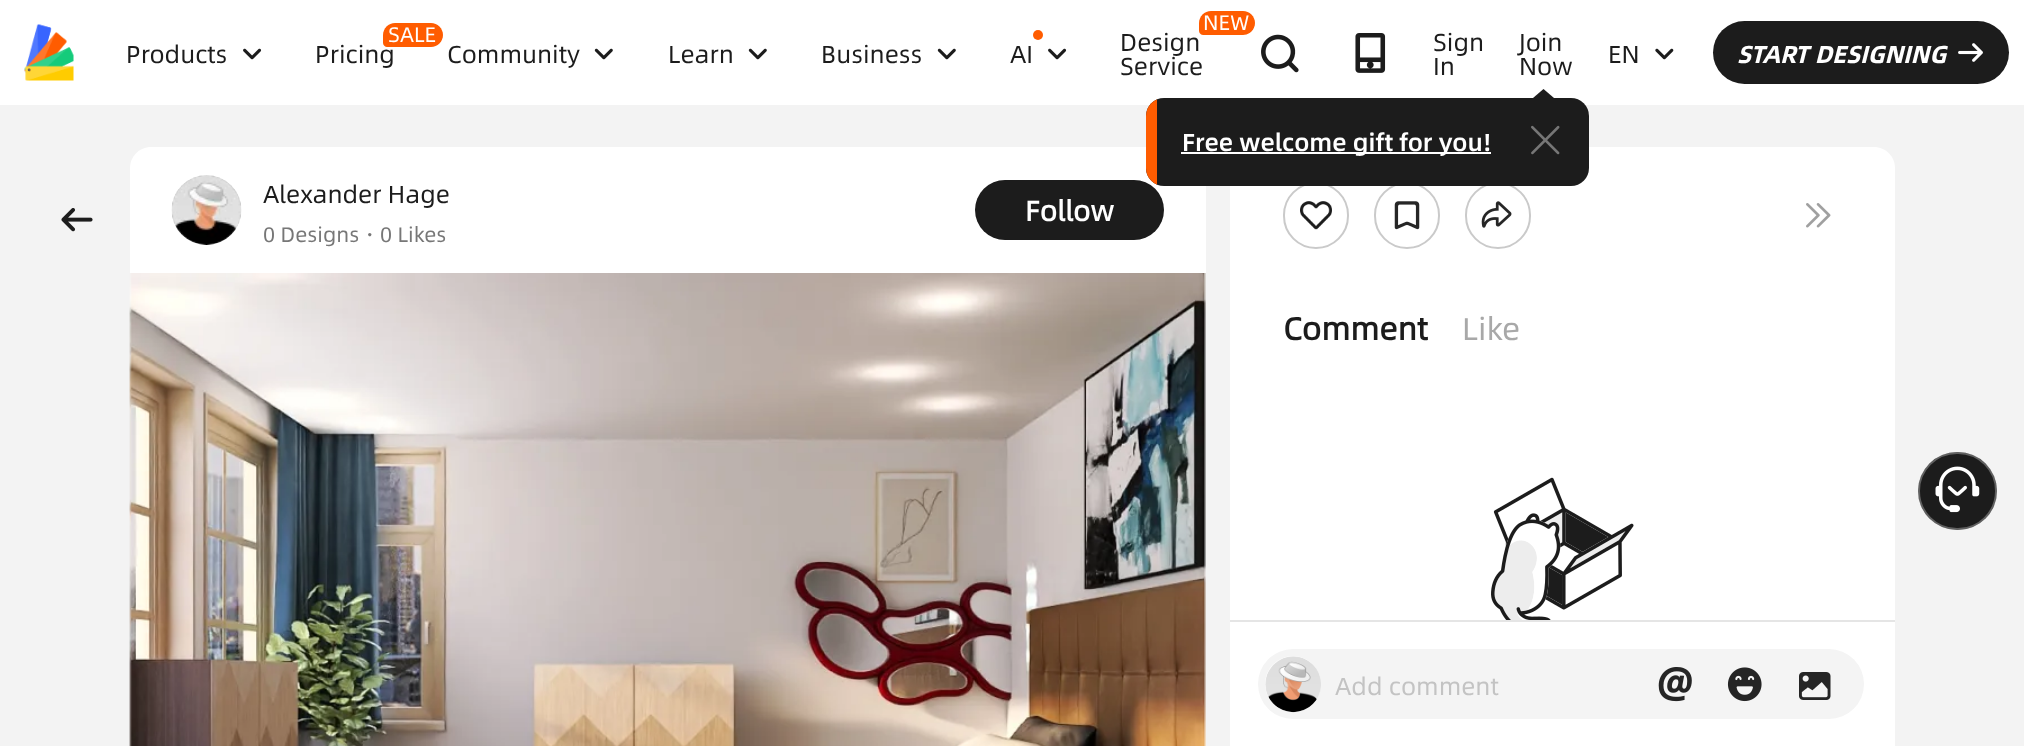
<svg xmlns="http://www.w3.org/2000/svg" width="2024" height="746">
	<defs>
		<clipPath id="clip1"><rect x="1146" y="98" width="443" height="88" rx="18" /></clipPath>
	</defs>
	<rect width="100%" height="100%" fill="#F3F3F3" />
	<rect x="0" y="0" width="2024" height="105" fill="#FFFFFF" />
	<image x="24" y="24" width="50" height="57" href="assets/img1.png" />
	<text x="126" y="63" font-family="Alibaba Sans" font-size="24.5" fill="#1C1C1C">Products</text>
	<image x="243" y="48" width="19" height="12" href="assets/img2.png" />
	<text x="315" y="63" font-family="Alibaba Sans" font-size="24.5" fill="#1C1C1C">Pricing</text>
	<path d="M395 23H431C437.5 23 443 28.5 443 35C443 41.5 437.5 47 431 47H387C385 47 383 45 383 43V35C383 28.5 388.5 23 395 23Z" fill="#FF5C00" />
	<text x="388" y="42" font-family="Alibaba Sans" font-size="21" fill="#FFFFFF">SALE</text>
	<text x="447" y="63" font-family="Alibaba Sans" font-size="24.5" fill="#1C1C1C">Community</text>
	<image x="594" y="48" width="19" height="12" href="assets/img3.png" />
	<text x="668" y="63" font-family="Alibaba Sans" font-size="24.5" fill="#1C1C1C">Learn</text>
	<image x="748" y="48" width="19" height="12" href="assets/img3.png" />
	<text x="821" y="63" font-family="Alibaba Sans" font-size="24.5" fill="#1C1C1C">Business</text>
	<image x="937" y="48" width="19" height="12" href="assets/img3.png" />
	<circle cx="1038" cy="35" r="5" fill="#FF5C00" />
	<text x="1010" y="63" font-family="Alibaba Sans" font-size="24.5" fill="#1C1C1C">AI</text>
	<image x="1048" y="48" width="19" height="12" href="assets/img2.png" />
	<path d="M1211 11H1243C1249.5 11 1255 16.5 1255 23C1255 29.5 1249.5 35 1243 35H1203C1201 35 1199 33 1199 31V23C1199 16.5 1204.5 11 1211 11Z" fill="#FF5C00" />
	<text x="1203" y="30" font-family="Alibaba Sans" font-size="21" fill="#FFFFFF">NEW</text>
	<g font-family="Alibaba Sans" font-size="24.5" fill="#1C1C1C">
		<text x="1120" y="51">Design</text>
		<text x="1120" y="75">Service</text>
		<text x="1519" y="51">Join</text>
		<text x="1519" y="75">Now</text>
	</g>
	<path d="M1554 98H1533L1543.5 89Z" fill="#1C1C1C" />
	<path d="M151 147H1185C1196.5 147 1206 156.5 1206 168V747H130V168C130 156.5 139.5 147 151 147Z" fill="#FFFFFF" />
	<rect x="975" y="180" width="189" height="60" rx="30" fill="#1C1C1C" />
	<path d="M1251 147H1874C1885.5 147 1895 156.5 1895 168V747H1230V168C1230 156.5 1239.5 147 1251 147Z" fill="#FFFFFF" />
	<rect x="1284" y="183" width="64" height="65" rx="32" fill="none" stroke="#CACACA" stroke-width="2" />
	<rect x="1375" y="183" width="64" height="65" rx="32" fill="none" stroke="#CACACA" stroke-width="2" />
	<rect x="1466" y="183" width="64" height="65" rx="32" fill="none" stroke="#CACACA" stroke-width="2" />
	<rect x="1146" y="98" width="443" height="88" rx="18" fill="#1C1C1C" />
	<g clip-path="url(#clip1)">
		<rect x="1146" y="99" width="11" height="86" fill="#FF5C00" />
	</g>
	<rect x="1181" y="152" width="310" height="2" fill="#FFFFFF" />
	<text x="1182" y="151" font-family="Alibaba Sans" font-size="24.5" font-weight="500" fill="#FFFFFF">Free welcome gift for you!</text>
	<image x="1531" y="125" width="29" height="30" href="assets/img4.png" />
	<image x="1261" y="34" width="38" height="39" href="assets/img5.png" />
	<image x="1355" y="33" width="31" height="40" href="assets/img6.png" />
	<g font-family="Alibaba Sans" font-size="24.5" fill="#1C1C1C">
		<text x="1433" y="51">Sign</text>
		<text x="1433" y="75">In</text>
		<text x="1608" y="63">EN</text>
	</g>
	<image x="1655" y="48" width="19" height="12" href="assets/img7.png" />
	<rect x="1713" y="21" width="296" height="63" rx="31.5" fill="#1C1C1C" />
	<text x="1737" y="63" font-family="Alibaba Sans" font-size="24.5" font-weight="700" font-style="italic" fill="#FFFFFF">START DESIGNING</text>
	<image x="1958" y="43" width="25" height="19" href="assets/img8.png" />
	<image x="61" y="208" width="32" height="24" href="assets/img9.png" />
	<image x="171" y="175" width="71" height="70" href="assets/img10.png" />
	<text x="263" y="203" font-family="Alibaba Sans" font-size="24.5" fill="#1C1C1C">Alexander Hage</text>
	<text x="263" y="242" font-family="Alibaba Sans" font-size="21" fill="#777777">0 Designs</text>
	<text x="359" y="242" font-family="WenQuanYi Zen Hei" font-size="21" font-weight="500" fill="#777777">・</text>
	<text x="380" y="242" font-family="Alibaba Sans" font-size="21" fill="#777777">0 Likes</text>
	<text x="1025" y="221" font-family="Alibaba Sans" font-size="28" font-weight="700" fill="#FFFFFF">Follow</text>
	<image x="129" y="273" width="1077" height="473" href="assets/img11.png" />
	<image x="131" y="273" width="1073" height="473" href="assets/img12.png" />
	<image x="1300" y="201" width="32" height="29" href="assets/img13.png" />
	<image x="1394" y="201" width="26" height="29" href="assets/img14.png" />
	<image x="1481" y="201" width="31" height="27" href="assets/img15.png" />
	<image x="1806" y="203" width="25" height="25" href="assets/img16.png" />
	<text x="1283" y="340" font-family="Alibaba Sans" font-size="31.5" font-weight="700" fill="#1C1C1C">Comment</text>
	<text x="1462" y="340" font-family="Alibaba Sans" font-size="31.5" fill="#A8A8A8">Like</text>
	<image x="1491" y="477" width="143" height="143" href="assets/img17.png" />
	<rect x="1230" y="620" width="665" height="2" fill="#E5E5E5" />
	<rect x="1258" y="649" width="606" height="70" rx="35" fill="#F4F4F4" />
	<circle cx="1293" cy="684" r="28" fill="#FFFFFF" />
	<image x="1265" y="656" width="56" height="57" href="assets/img18.png" />
	<text x="1335" y="695" font-family="Alibaba Sans" font-size="24.5" fill="#C3C3C3">Add comment</text>
	<image x="1658" y="667" width="34" height="35" href="assets/img19.png" />
	<image x="1727" y="667" width="35" height="35" href="assets/img20.png" />
	<image x="1799" y="672" width="32" height="28" href="assets/img21.png" />
	<rect x="1918" y="452" width="79" height="78" rx="39" fill="#1C1C1C" />
	<rect x="1919" y="453" width="77" height="76" rx="38" fill="none" stroke="#FFFFFF" stroke-opacity="0.3" stroke-width="2" />
	<image x="1935" y="466" width="45" height="47" href="assets/img22.png" />
</svg>
